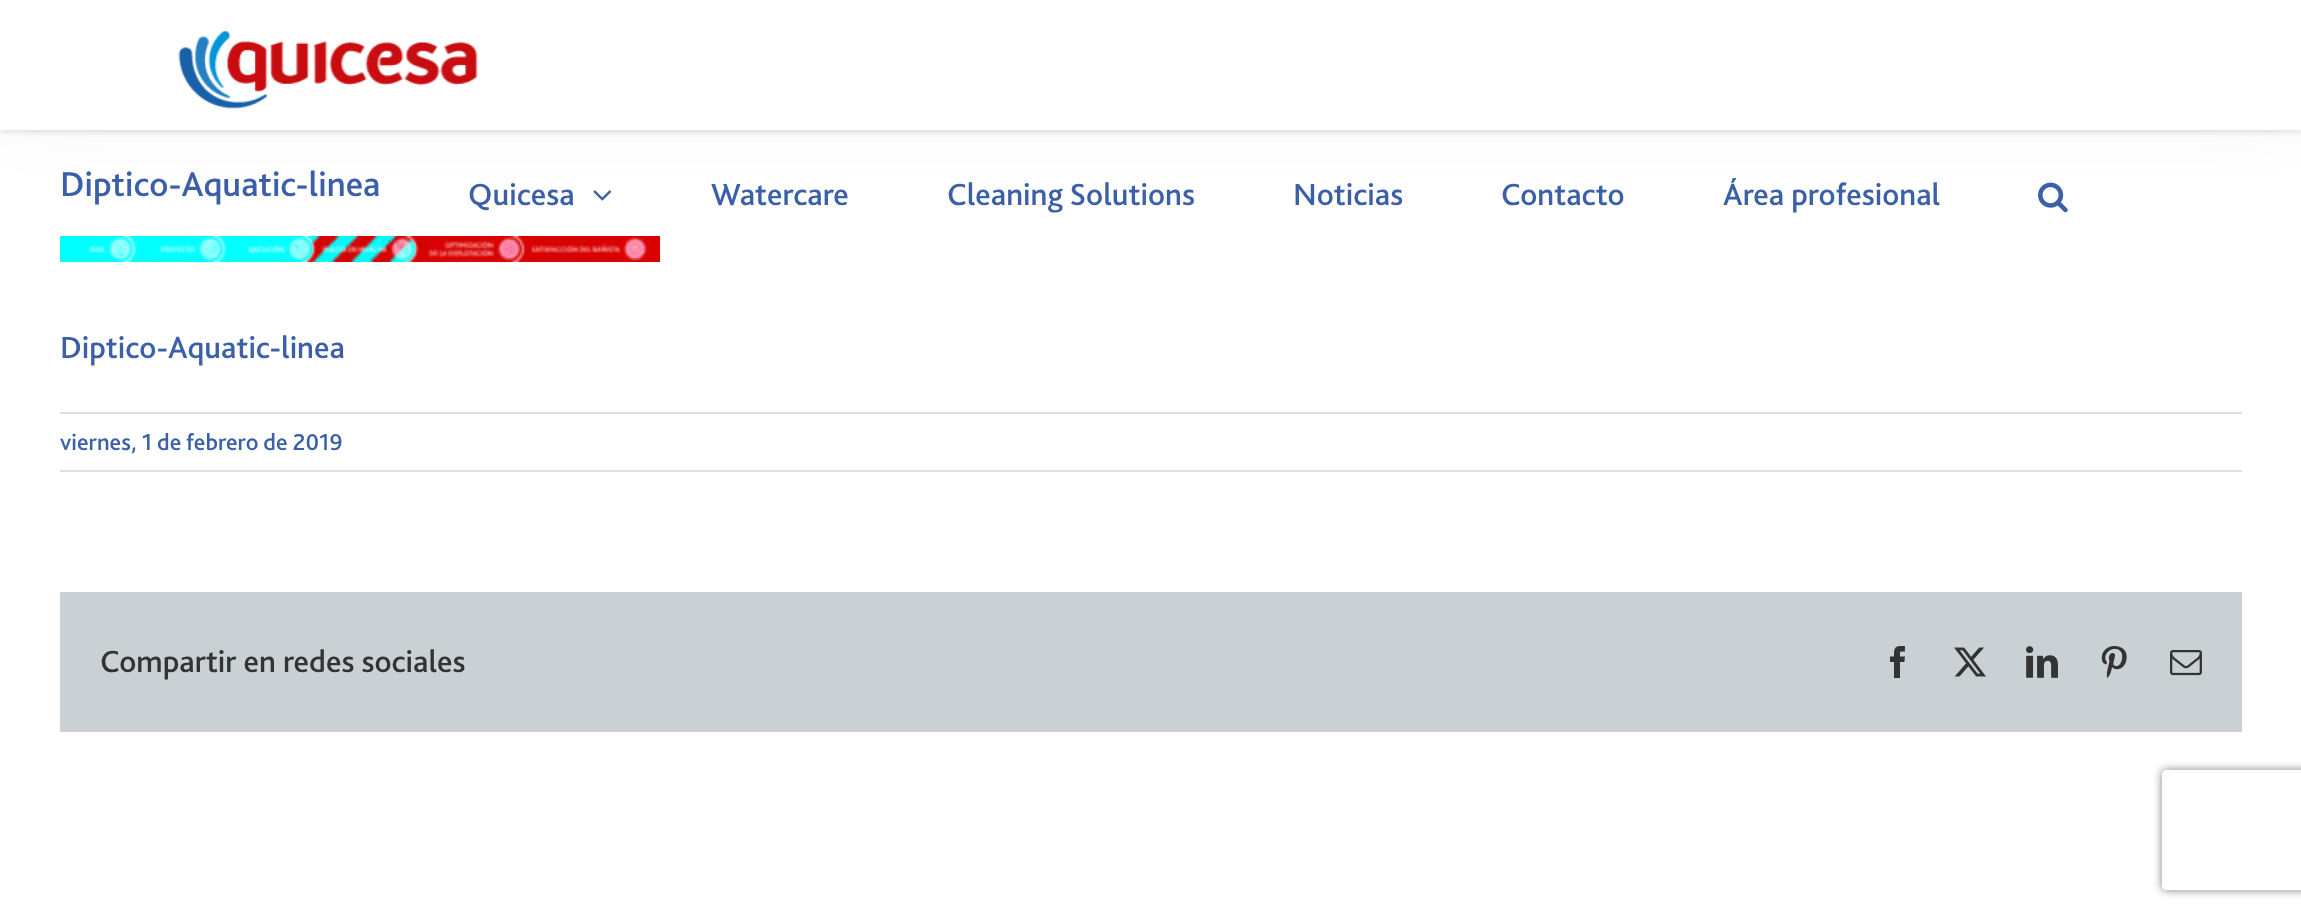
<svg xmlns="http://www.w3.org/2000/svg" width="2301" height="918">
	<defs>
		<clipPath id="clip1"><path d="M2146 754H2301V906H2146ZM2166 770H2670C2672 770 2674 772 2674 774V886C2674 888 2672 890 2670 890H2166C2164 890 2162 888 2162 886V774C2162 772 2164 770 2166 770Z" clip-rule="evenodd" /></clipPath>
	</defs>
	<rect width="100%" height="100%" fill="#FFFFFF" />
	<text x="60" y="196" font-family="'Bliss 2'" font-size="36" font-weight="500" fill="#3B60A7">Diptico-Aquatic-linea</text>
	<image x="60" y="236" width="600" height="26" href="assets/img1.png" />
	<text x="60" y="358" font-family="'Bliss 2'" font-size="32" font-weight="500" fill="#3B60A7">Diptico-Aquatic-linea</text>
	<rect x="60" y="412" width="2182" height="2" fill="#E0DEDE" />
	<rect x="60" y="470" width="2182" height="2" fill="#E0DEDE" />
	<text x="60" y="450" font-family="'Bliss 2'" font-size="24" font-weight="500" fill="#3B60A7">viernes, 1 de febrero de 2019</text>
	<rect x="60" y="592" width="2182" height="140" fill="#CAD1D5" />
	<text x="100" y="672" font-family="'Bliss 2'" font-size="32" font-weight="500" fill="#333333">Compartir en redes sociales</text>
	<image x="1890" y="646" width="15" height="32" href="assets/img2.png" />
	<image x="1954" y="647" width="32" height="30" href="assets/img3.png" />
	<image x="2026" y="646" width="32" height="32" href="assets/img4.png" />
	<image x="2101" y="646" width="26" height="32" href="assets/img5.png" />
	<image x="2170" y="650" width="32" height="26" href="assets/img6.png" />
	<rect x="4" y="-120" width="2294" height="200" fill="#000000" fill-opacity="0.14" filter="blur(50px)" />
	<rect x="0" y="2" width="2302" height="130" fill="#000000" fill-opacity="0.12" filter="blur(3px)" />
	<rect x="0" y="0" width="2301" height="130" fill="#FFFFFF" />
	<image x="178" y="31" width="300" height="78" href="assets/img7.png" />
	<text x="468" y="205" font-family="'Bliss 2'" font-size="32" font-weight="500" fill="#3B60A7">Quicesa</text>
	<image x="593" y="190" width="19" height="11" href="assets/img8.png" />
	<g font-family="'Bliss 2'" font-size="32" font-weight="500" fill="#3B60A7">
		<text x="711" y="205">Watercare</text>
		<text x="947" y="205">Cleaning Solutions</text>
		<text x="1293" y="205">Noticias</text>
		<text x="1501" y="205">Contacto</text>
		<text x="1723" y="205">Área profesional</text>
	</g>
	<image x="2038" y="182" width="30" height="31" href="assets/img9.png" />
	<g clip-path="url(#clip1)">
		<rect x="2162" y="770" width="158" height="120" rx="4" fill="#808080" filter="blur(5px)" />
	</g>
</svg>
